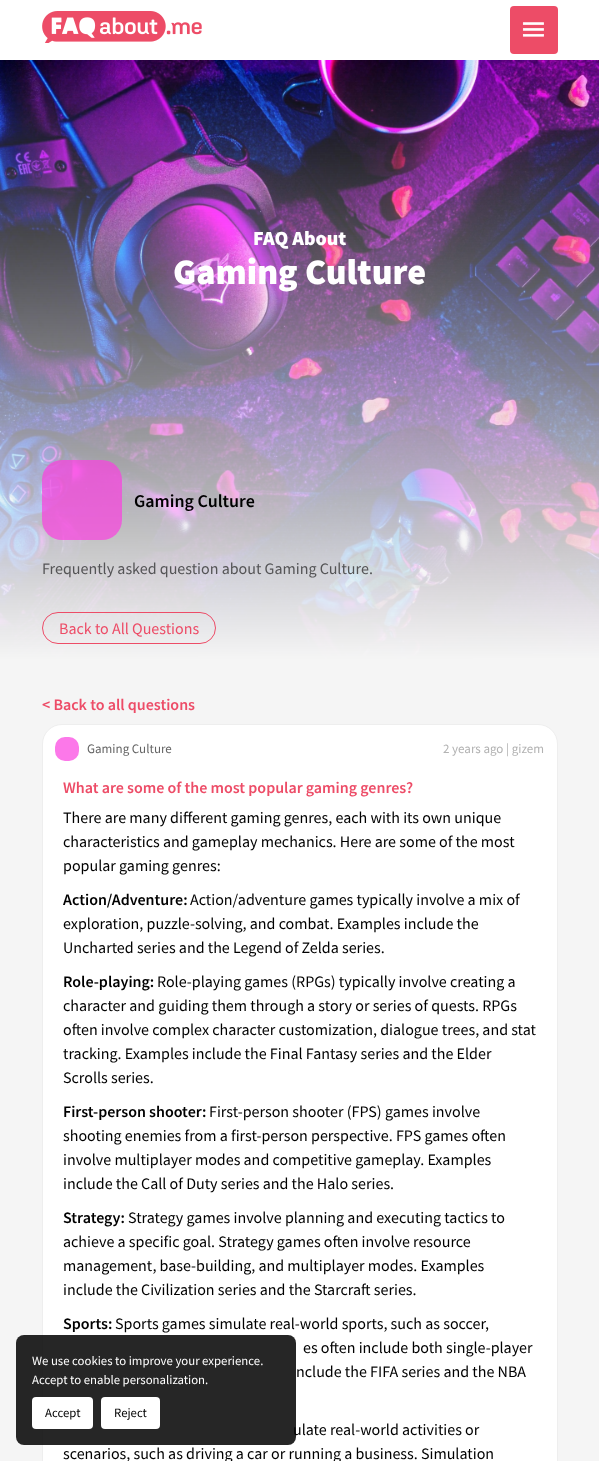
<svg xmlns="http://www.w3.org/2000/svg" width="599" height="1461">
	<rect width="100%" height="100%" fill="#F5F5F5" />
	<rect x="0" y="0" width="599" height="60" fill="#FFFFFF" />
	<image x="42" y="11" width="160" height="32" href="assets/img1.png" />
	<rect x="510" y="6" width="48" height="48" rx="4" fill="#ED4C67" />
	<image x="522" y="22" width="22" height="15" href="assets/img2.png" />
	<image x="0" y="60" width="599" height="600" href="assets/img3.png" />
	<text x="253" y="245" font-family="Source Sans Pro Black" font-size="20" font-weight="900" fill="#FFFFFF">FAQ About</text>
	<text x="173" y="284" font-family="Source Sans Pro Black" font-size="36" font-weight="900" fill="#FFFFFF">Gaming Culture</text>
	<rect x="42" y="460" width="80" height="80" rx="20" fill="#FB3EDF" fill-opacity="0.7" />
	<text x="134" y="507" font-family="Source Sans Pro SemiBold" font-size="18" font-weight="600" fill="#000000">Gaming Culture</text>
	<text x="42" y="574" font-family="Source Sans Pro" font-size="16" fill="#545456">Frequently asked question about Gaming Culture.</text>
	<rect x="42.5" y="612.5" width="173" height="31" rx="15.5" fill="none" stroke="#ED4C67" />
	<text x="59" y="634" font-family="Source Sans Pro" font-size="16" fill="#ED4C67">Back to All Questions</text>
	<text x="42" y="710" font-family="Source Sans Pro SemiBold" font-size="16" font-weight="600" fill="#ED4C67">&lt; Back to all questions</text>
	<rect x="42.5" y="724.5" width="515" height="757" rx="19.5" fill="#FFFFFF" stroke="#EEEEEE" />
	<rect x="55" y="737" width="24" height="24" rx="10" fill="#FC78E9" />
	<text x="87" y="753" font-family="Source Sans Pro" font-size="13" fill="#646464">Gaming Culture</text>
	<text x="443" y="753" font-family="Source Sans Pro" font-size="13" fill="#B2B2B2">2 years ago | gizem</text>
	<text x="63" y="793" font-family="Source Sans Pro SemiBold" font-size="16" font-weight="600" fill="#ED4C67">What are some of the most popular gaming genres?</text>
	<g font-family="Source Sans Pro" font-size="16" fill="#000000">
		<text x="63" y="823">There are many different gaming genres, each with its own unique</text>
		<text x="63" y="847">characteristics and gameplay mechanics. Here are some of the most</text>
		<text x="63" y="871">popular gaming genres:</text>
	</g>
	<text x="63" y="905" font-family="Source Sans Pro SemiBold" font-size="16" font-weight="600" fill="#000000">Action/Adventure:</text>
	<g font-family="Source Sans Pro" font-size="16" fill="#000000">
		<text x="190" y="905">Action/adventure games typically involve a mix of</text>
		<text x="63" y="929">exploration, puzzle-solving, and combat. Examples include the</text>
		<text x="63" y="953">Uncharted series and the Legend of Zelda series.</text>
	</g>
	<text x="63" y="987" font-family="Source Sans Pro SemiBold" font-size="16" font-weight="600" fill="#000000">Role-playing:</text>
	<g font-family="Source Sans Pro" font-size="16" fill="#000000">
		<text x="157" y="987">Role-playing games (RPGs) typically involve creating a</text>
		<text x="63" y="1011">character and guiding them through a story or series of quests. RPGs</text>
		<text x="63" y="1035">often involve complex character customization, dialogue trees, and stat</text>
		<text x="63" y="1059">tracking. Examples include the Final Fantasy series and the Elder</text>
		<text x="63" y="1083">Scrolls series.</text>
	</g>
	<text x="63" y="1117" font-family="Source Sans Pro SemiBold" font-size="16" font-weight="600" fill="#000000">First-person shooter:</text>
	<g font-family="Source Sans Pro" font-size="16" fill="#000000">
		<text x="209" y="1117">First-person shooter (FPS) games involve</text>
		<text x="63" y="1141">shooting enemies from a first-person perspective. FPS games often</text>
		<text x="63" y="1165">involve multiplayer modes and competitive gameplay. Examples</text>
		<text x="63" y="1189">include the Call of Duty series and the Halo series.</text>
	</g>
	<text x="63" y="1223" font-family="Source Sans Pro SemiBold" font-size="16" font-weight="600" fill="#000000">Strategy:</text>
	<g font-family="Source Sans Pro" font-size="16" fill="#000000">
		<text x="128" y="1223">Strategy games involve planning and executing tactics to</text>
		<text x="63" y="1247">achieve a specific goal. Strategy games often involve resource</text>
		<text x="63" y="1271">management, base-building, and multiplayer modes. Examples</text>
		<text x="63" y="1295">include the Civilization series and the Starcraft series.</text>
	</g>
	<text x="63" y="1329" font-family="Source Sans Pro SemiBold" font-size="16" font-weight="600" fill="#000000">Sports:</text>
	<g font-family="Source Sans Pro" font-size="16" fill="#000000">
		<text x="115" y="1329">Sports games simulate real-world sports, such as soccer,</text>
		<text x="303" y="1353">es often include both single-player</text>
		<text x="296" y="1377">nclude the FIFA series and the NBA</text>
		<text x="293" y="1435">ulate real-world activities or</text>
		<text x="63" y="1459">scenarios, such as driving a car or running a business. Simulation</text>
	</g>
	<rect x="16" y="1335" width="280" height="110" rx="8" fill="#000000" fill-opacity="0.85" />
	<g font-family="Source Sans Pro" font-size="12.75" fill="#FFFFFF">
		<text x="32" y="1365">We use cookies to improve your experience.</text>
		<text x="32" y="1384">Accept to enable personalization.</text>
	</g>
	<rect x="32" y="1397" width="61" height="32" rx="4" fill="#FFFFFF" />
	<text x="45" y="1417" font-family="Source Sans Pro" font-size="12.75" fill="#000000">Accept</text>
	<rect x="101" y="1397" width="59" height="32" rx="4" fill="#FFFFFF" />
	<text x="114" y="1417" font-family="Source Sans Pro" font-size="12.75" fill="#000000">Reject</text>
</svg>
